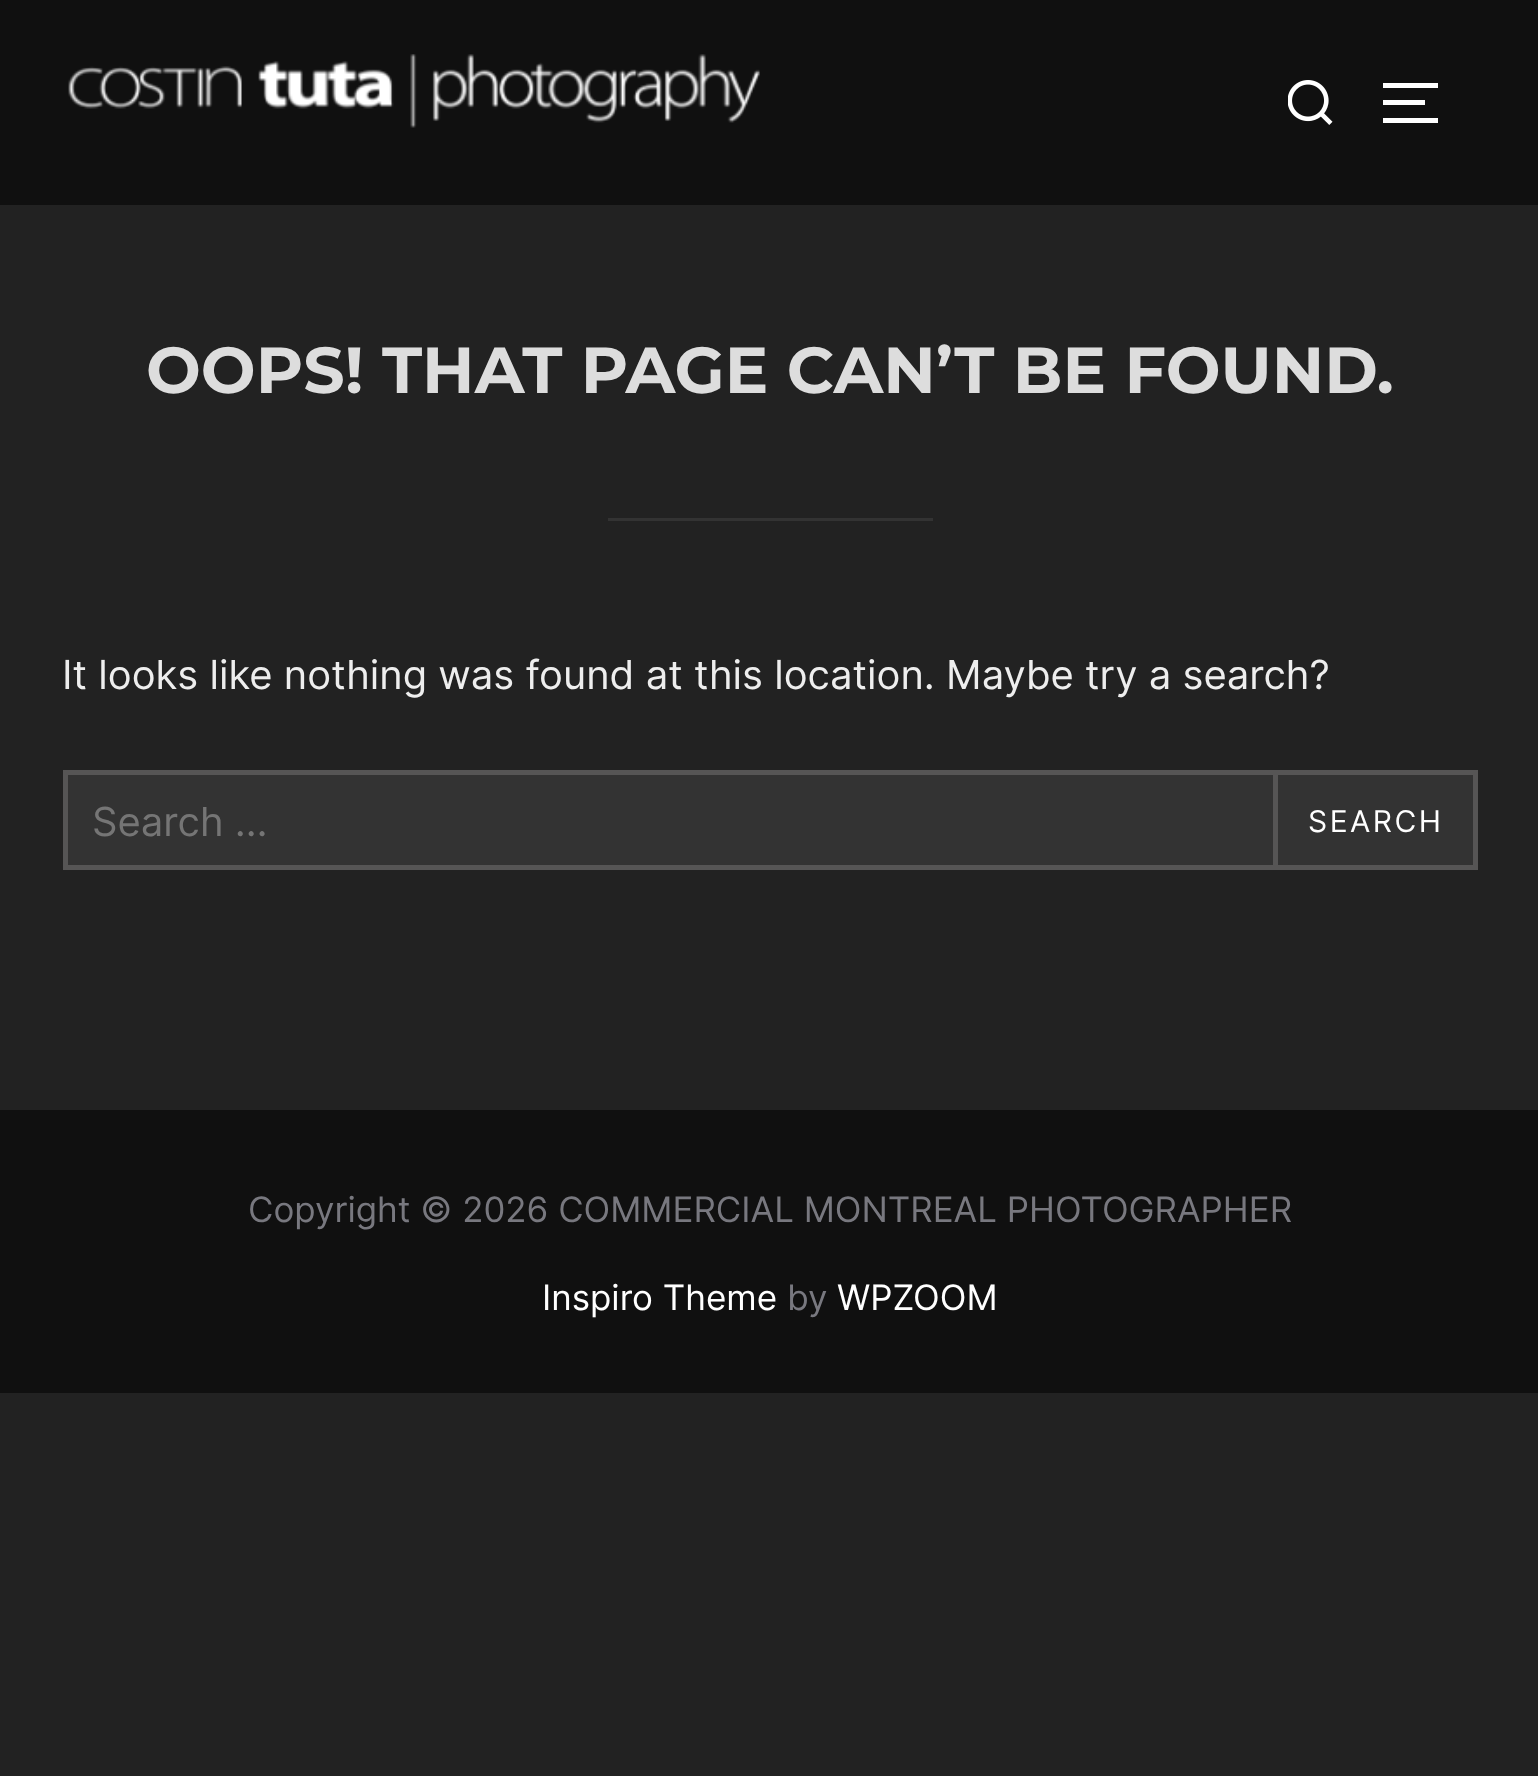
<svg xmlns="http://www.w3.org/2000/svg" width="1538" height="1776">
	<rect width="100%" height="100%" fill="#222222" />
	<rect x="0" y="0" width="1538" height="205" fill="#101010" />
	<image x="68" y="54" width="692" height="74" href="assets/img1.png" />
	<image x="1288" y="80" width="45" height="45" href="assets/img2.png" />
	<rect x="1383" y="83" width="55" height="5" fill="#FFFFFF" />
	<rect x="1383" y="100" width="42" height="5" fill="#FFFFFF" />
	<rect x="1383" y="118" width="55" height="5" fill="#FFFFFF" />
	<text x="146" y="393" font-family="Montserrat" font-size="65" font-weight="100" fill="#DDDDDD">OOPS! THAT PAGE CAN’T BE FOUND.</text>
	<rect x="608" y="518" width="325" height="3" fill="#333333" />
	<text x="62" y="689" font-family="Inter" font-size="40" fill="#EEEEEE">It looks like nothing was found at this location. Maybe try a search?</text>
	<rect x="65.5" y="772.5" width="1410" height="95" fill="#333333" stroke="#565555" stroke-width="5" />
	<text x="92" y="836" font-family="Inter" font-size="40" fill="#757575">Search …</text>
	<rect x="1275.5" y="772.5" width="200" height="95" fill="none" stroke="#565555" stroke-width="5" />
	<text x="1308" y="832" font-family="Inter" font-size="30" letter-spacing="2.5" fill="#FFFFFF">SEARCH</text>
	<rect x="0" y="1110" width="1538" height="283" fill="#101010" />
	<text x="248" y="1222" font-family="Inter" font-size="35" fill="#78787F">Copyright © 2026 COMMERCIAL MONTREAL PHOTOGRAPHER</text>
	<text x="542" y="1310" font-family="Inter" font-size="35" fill="#FFFFFF">Inspiro Theme</text>
	<text x="787" y="1310" font-family="Inter" font-size="35" fill="#78787F">by</text>
	<text x="837" y="1310" font-family="Inter" font-size="35" fill="#FFFFFF">WPZOOM</text>
</svg>
